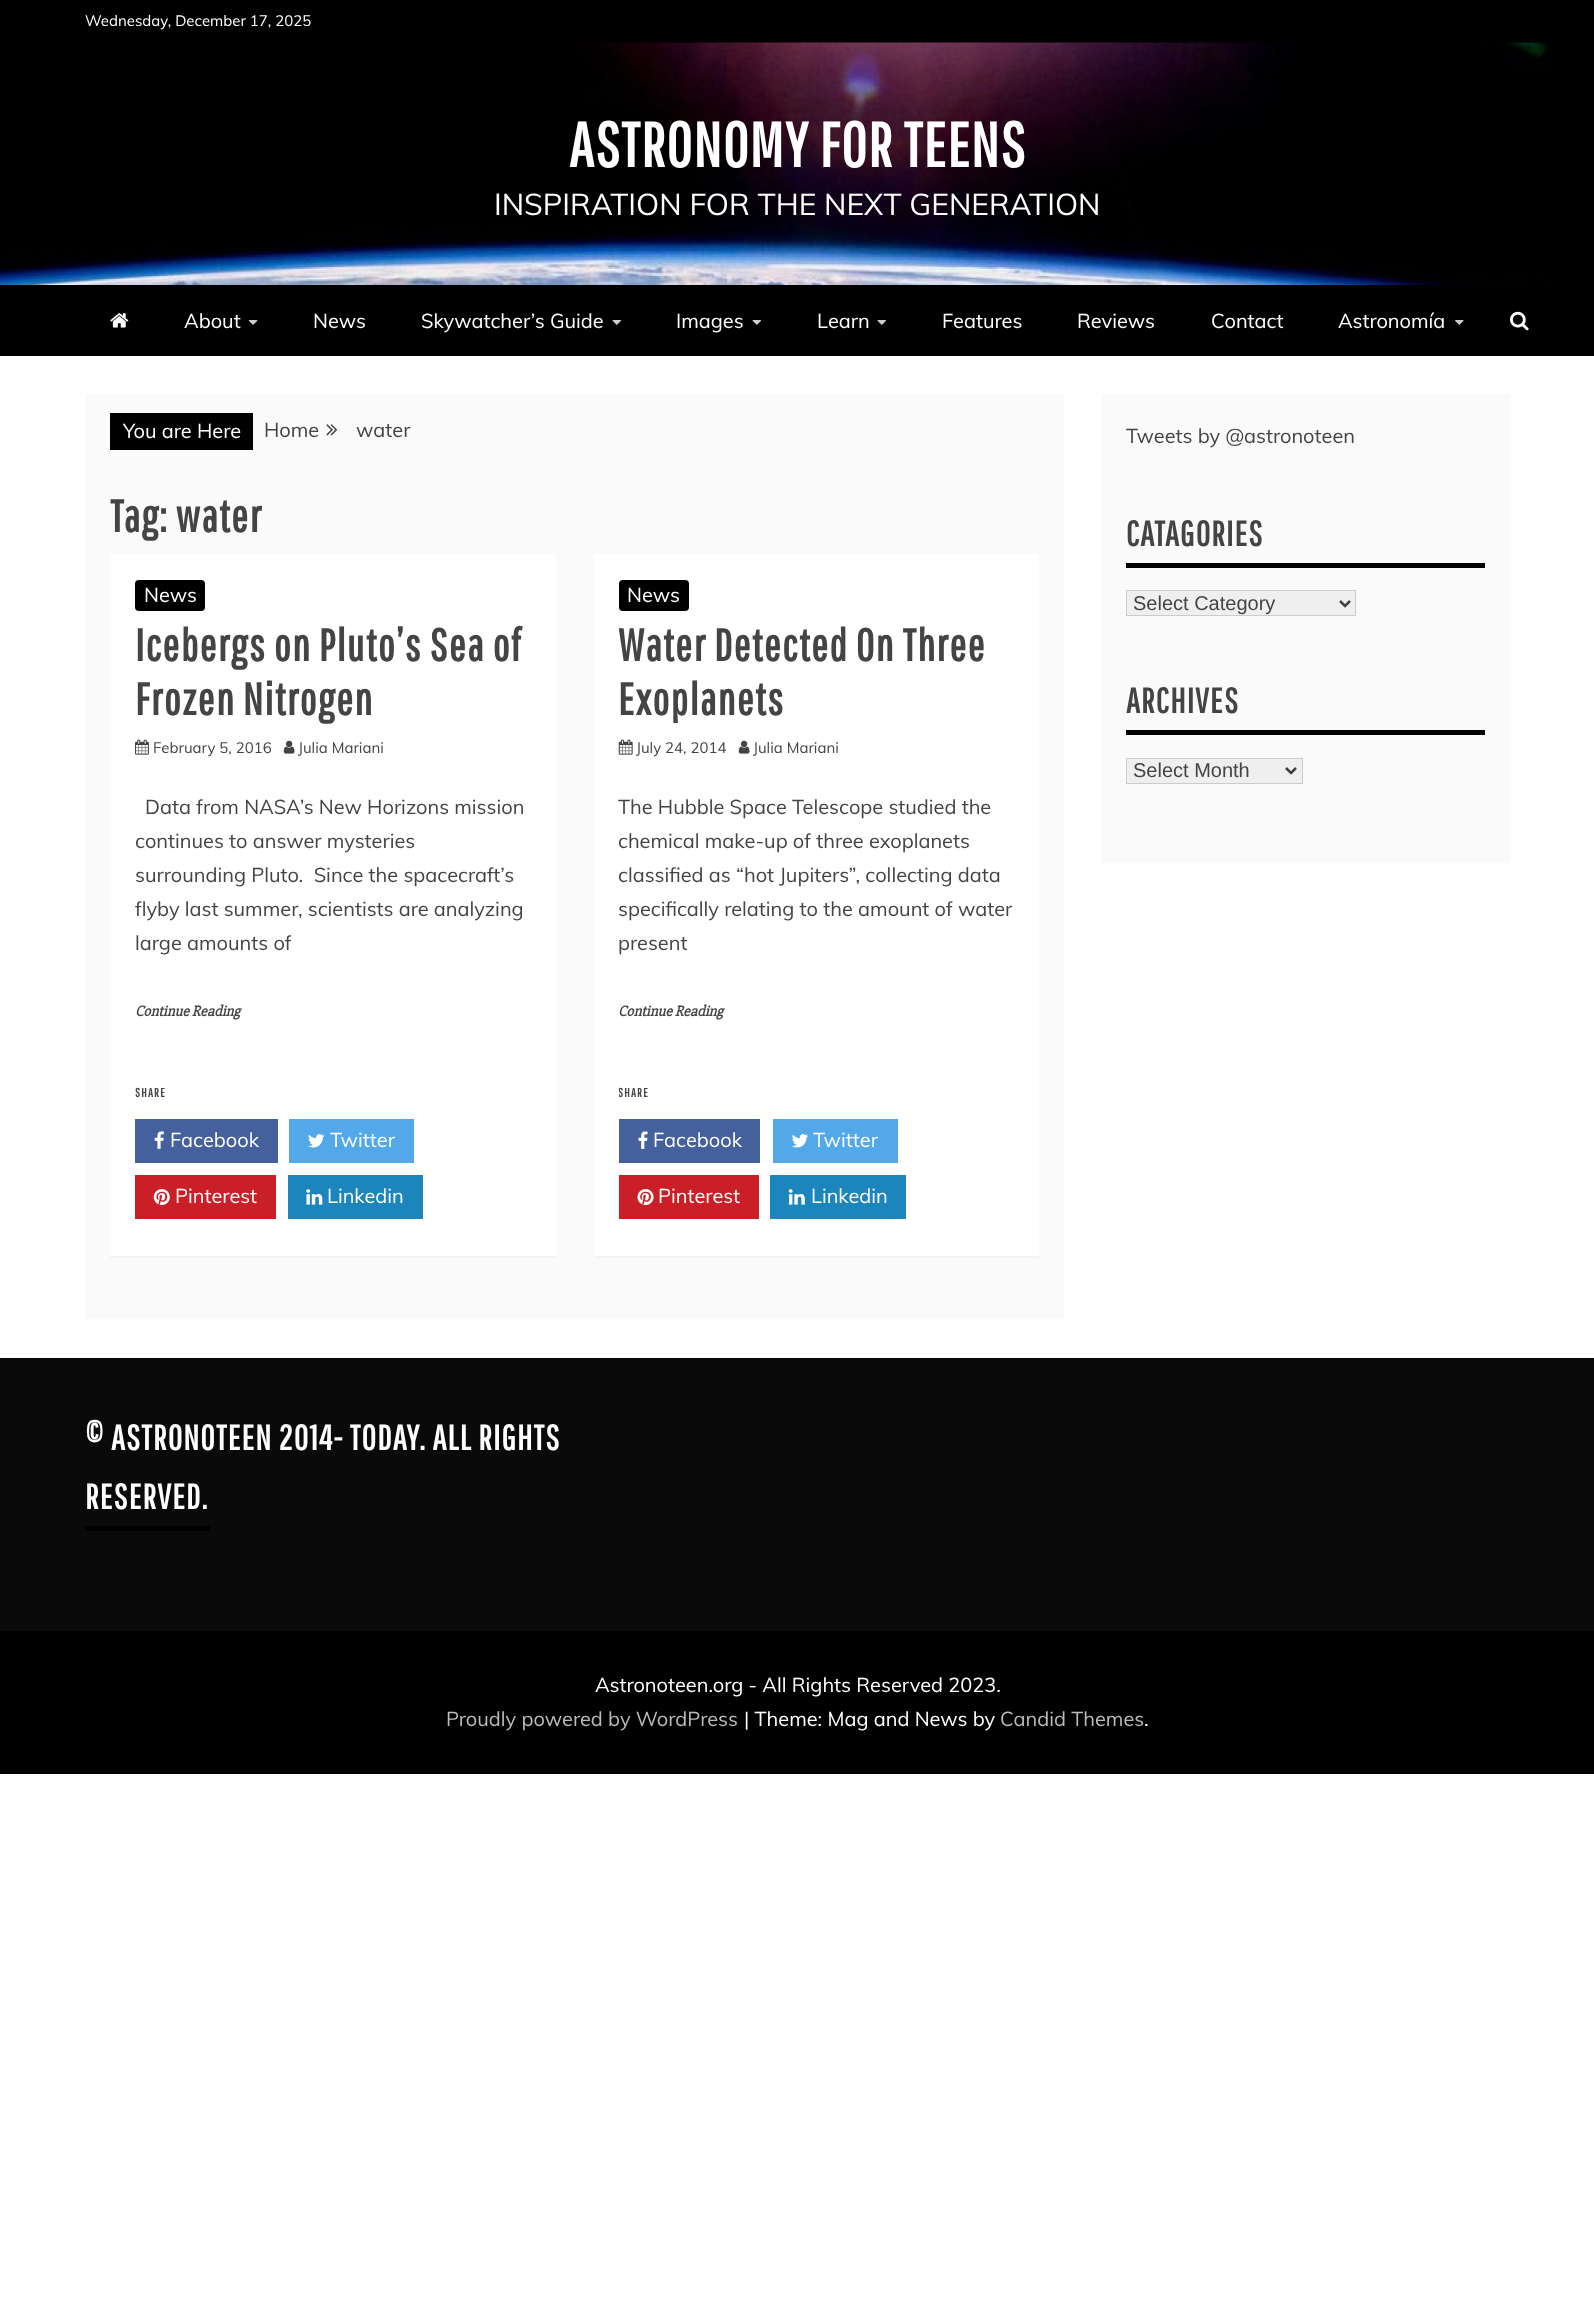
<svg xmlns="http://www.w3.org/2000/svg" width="1594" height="2301">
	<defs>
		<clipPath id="clip1"><rect x="619" y="1083" width="395" height="148" /></clipPath>
	</defs>
	<rect width="100%" height="100%" fill="#FFFFFF" />
	<rect x="0" y="0" width="1594" height="43" fill="#000000" />
	<text x="85" y="26" font-family="Muli" font-size="15" fill="#FFFFFF">Wednesday, December 17, 2025</text>
	<image x="0" y="42" width="1594" height="243" href="assets/img1.png" />
	<text x="569" y="167" font-family="Pathway Gothic One" font-size="62.5" font-weight="700" letter-spacing="1.25" fill="#FFFFFF">ASTRONOMY FOR TEENS</text>
	<text x="494" y="215" font-family="Muli" font-size="30" fill="#FFFFFF">INSPIRATION FOR THE NEXT GENERATION</text>
	<rect x="0" y="285" width="1594" height="71" fill="#000000" />
	<image x="110" y="313" width="19" height="15" href="assets/img2.png" />
	<text x="184" y="328" font-family="Muli" font-size="20" fill="#FFFFFF">About</text>
	<image x="248" y="320" width="10" height="5" href="assets/img3.png" />
	<g font-family="Muli" font-size="20" fill="#FFFFFF">
		<text x="313" y="328">News</text>
		<text x="421" y="328">Skywatcher’s Guide</text>
	</g>
	<image x="612" y="320" width="9" height="5" href="assets/img4.png" />
	<text x="676" y="328" font-family="Muli" font-size="20" fill="#FFFFFF">Images</text>
	<image x="752" y="320" width="9" height="5" href="assets/img4.png" />
	<text x="817" y="328" font-family="Muli" font-size="20" fill="#FFFFFF">Learn</text>
	<image x="877" y="320" width="9" height="5" href="assets/img4.png" />
	<g font-family="Muli" font-size="20" fill="#FFFFFF">
		<text x="942" y="328">Features</text>
		<text x="1077" y="328">Reviews</text>
		<text x="1211" y="328">Contact</text>
		<text x="1338" y="328">Astronomía</text>
	</g>
	<image x="1455" y="320" width="9" height="5" href="assets/img5.png" />
	<image x="1510" y="311" width="19" height="20" href="assets/img6.png" />
	<rect x="85" y="394" width="979" height="925" fill="#FAFAFA" />
	<rect x="110" y="413" width="143" height="37" fill="#000000" />
	<text x="123" y="438" font-family="Muli" font-size="20" fill="#FFFFFF">You are Here</text>
	<text x="264" y="437" font-family="Muli" font-size="20" fill="#444444">Home</text>
	<image x="326" y="424" width="12" height="12" href="assets/img7.png" />
	<text x="356" y="437" font-family="Muli" font-size="20" fill="#444444">water</text>
	<text x="110" y="532" font-family="Pathway Gothic One" font-size="45" font-weight="700" letter-spacing="1.25" fill="#444444">Tag: water</text>
	<rect x="110" y="1256" width="446" height="2" fill="#F3F3F3" />
	<rect x="110" y="554" width="446" height="702" fill="#FFFFFF" />
	<rect x="135" y="580" width="70" height="31" rx="4" fill="#000000" />
	<text x="144" y="602" font-family="Muli" font-size="20" fill="#FFFFFF">News</text>
	<g font-family="Pathway Gothic One" font-size="45" font-weight="700" letter-spacing="1.25" fill="#444444">
		<text x="135" y="661">Icebergs on Pluto’s Sea of</text>
		<text x="135" y="715">Frozen Nitrogen</text>
	</g>
	<image x="135" y="739" width="14" height="16" href="assets/img8.png" />
	<text x="153" y="753" font-family="Muli" font-size="15" fill="#444444">February 5, 2016</text>
	<image x="283" y="740" width="12" height="14" href="assets/img9.png" />
	<text x="298" y="753" font-family="Muli" font-size="15" fill="#444444">Julia Mariani</text>
	<g font-family="Muli" font-size="20" fill="#444444">
		<text x="145" y="814">Data from NASA’s New Horizons mission</text>
		<text x="135" y="848">continues to answer mysteries</text>
		<text x="135" y="882" xml:space="preserve">surrounding Pluto.  Since the spacecraft’s</text>
		<text x="135" y="916">flyby last summer, scientists are analyzing</text>
		<text x="135" y="950">large amounts of</text>
	</g>
	<text x="135" y="1016" font-family="'Slabo 27px'" font-size="15" font-weight="700" font-style="italic" fill="#444444">Continue Reading</text>
	<text x="135" y="1097" font-family="Pathway Gothic One" font-size="12.5" font-weight="700" letter-spacing="1.25" fill="#444444">SHARE</text>
	<rect x="135" y="1119" width="143" height="44" fill="#45619D" />
	<image x="154" y="1131" width="10" height="18" href="assets/img10.png" />
	<text x="170" y="1147" font-family="Muli" font-size="20" fill="#FFFFFF">Facebook</text>
	<rect x="289" y="1119" width="125" height="44" fill="#53A8EA" />
	<image x="308" y="1134" width="17" height="14" href="assets/img11.png" />
	<text x="330" y="1147" font-family="Muli" font-size="20" fill="#FFFFFF">Twitter</text>
	<rect x="135" y="1175" width="141" height="44" fill="#CA1F26" />
	<image x="153" y="1189" width="17" height="17" href="assets/img12.png" />
	<text x="175" y="1203" font-family="Muli" font-size="20" fill="#FFFFFF">Pinterest</text>
	<rect x="288" y="1175" width="135" height="44" fill="#1B85BC" />
	<image x="306" y="1189" width="17" height="16" href="assets/img13.png" />
	<text x="327" y="1203" font-family="Muli" font-size="20" fill="#FFFFFF">Linkedin</text>
	<path d="M594 1256V1258H1039V555V1256Z" fill="#F3F3F3" />
	<rect x="594" y="554" width="445" height="702" fill="#FFFFFF" />
	<rect x="619" y="580" width="70" height="31" rx="4" fill="#000000" />
	<text x="627" y="602" font-family="Muli" font-size="20" fill="#FFFFFF">News</text>
	<g font-family="Pathway Gothic One" font-size="45" font-weight="700" letter-spacing="1.25" fill="#444444">
		<text x="618" y="661">Water Detected On Three</text>
		<text x="618" y="715">Exoplanets</text>
	</g>
	<image x="618" y="739" width="15" height="16" href="assets/img14.png" />
	<text x="636" y="753" font-family="Muli" font-size="15" fill="#444444">July 24, 2014</text>
	<image x="738" y="740" width="12" height="14" href="assets/img9.png" />
	<text x="753" y="753" font-family="Muli" font-size="15" fill="#444444">Julia Mariani</text>
	<g font-family="Muli" font-size="20" fill="#444444">
		<text x="618" y="814">The Hubble Space Telescope studied the</text>
		<text x="618" y="848">chemical make-up of three exoplanets</text>
		<text x="618" y="882">classified as “hot Jupiters”, collecting data</text>
		<text x="618" y="916">specifically relating to the amount of water</text>
		<text x="618" y="950">present</text>
	</g>
	<text x="618" y="1016" font-family="'Slabo 27px'" font-size="15" font-weight="700" font-style="italic" fill="#444444">Continue Reading</text>
	<g clip-path="url(#clip1)">
		<text x="618" y="1097" font-family="Pathway Gothic One" font-size="12.5" font-weight="700" letter-spacing="1.25" fill="#444444">SHARE</text>
	</g>
	<rect x="619" y="1119" width="141" height="44" fill="#45619D" />
	<image x="638" y="1131" width="10" height="18" href="assets/img15.png" />
	<text x="653" y="1147" font-family="Muli" font-size="20" fill="#FFFFFF">Facebook</text>
	<rect x="773" y="1119" width="125" height="44" fill="#53A8EA" />
	<image x="792" y="1134" width="16" height="14" href="assets/img16.png" />
	<text x="813" y="1147" font-family="Muli" font-size="20" fill="#FFFFFF">Twitter</text>
	<rect x="619" y="1175" width="140" height="44" fill="#CA1F26" />
	<image x="637" y="1189" width="17" height="17" href="assets/img17.png" />
	<text x="658" y="1203" font-family="Muli" font-size="20" fill="#FFFFFF">Pinterest</text>
	<rect x="770" y="1175" width="136" height="44" fill="#1B85BC" />
	<image x="788" y="1189" width="17" height="16" href="assets/img18.png" />
	<text x="811" y="1203" font-family="Muli" font-size="20" fill="#FFFFFF">Linkedin</text>
	<rect x="1101" y="394" width="409" height="469" fill="#FAFAFA" />
	<text x="1126" y="443" font-family="Muli" font-size="20" fill="#444444">Tweets by @astronoteen</text>
	<text x="1126" y="546" font-family="Pathway Gothic One" font-size="35" font-weight="700" letter-spacing="1.25" fill="#444444">CATAGORIES</text>
	<rect x="1126" y="563" width="359" height="5" fill="#000000" />
	<rect x="1126.5" y="590.5" width="229" height="25" fill="#EFEFEF" stroke="#CCCCCC" />
	<path d="M1340 601L1345 606L1350 601" fill="none" stroke="#404040" stroke-width="2.5" />
	<text x="1133" y="610" font-family="Liberation Sans" font-size="20" fill="#444444">Select Category</text>
	<text x="1126" y="713" font-family="Pathway Gothic One" font-size="35" font-weight="700" letter-spacing="1.25" fill="#444444">ARCHIVES</text>
	<rect x="1126" y="730" width="359" height="5" fill="#000000" />
	<rect x="1126.5" y="758.5" width="176" height="25" fill="#EFEFEF" stroke="#CCCCCC" />
	<path d="M1286 768L1291 773L1296 768" fill="none" stroke="#404040" stroke-width="2.5" />
	<text x="1133" y="777" font-family="Liberation Sans" font-size="20" fill="#444444">Select Month</text>
	<rect x="0" y="1358" width="1594" height="273" fill="#0A0A0A" />
	<g font-family="Pathway Gothic One" font-size="35" font-weight="700" letter-spacing="1.25" fill="#FFFFFF">
		<text x="85" y="1450">© ASTRONOTEEN 2014- TODAY. ALL RIGHTS</text>
		<text x="85" y="1509">RESERVED.</text>
	</g>
	<rect x="85" y="1526" width="125" height="5" fill="#000000" />
	<rect x="0" y="1631" width="1594" height="143" fill="#000000" />
	<text x="595" y="1692" font-family="Muli" font-size="20" fill="#FFFFFF">Astronoteen.org - All Rights Reserved 2023.</text>
	<text x="446" y="1726" font-family="Muli" font-size="20" fill="#BBBBBB">Proudly powered by WordPress</text>
	<text x="744" y="1726" font-family="Muli" font-size="20" fill="#FFFFFF">| Theme: Mag and News by</text>
	<text x="1000" y="1726" font-family="Muli" font-size="20" fill="#BBBBBB">Candid Themes</text>
	<text x="1144" y="1726" font-family="Muli" font-size="20" fill="#FFFFFF">.</text>
</svg>
